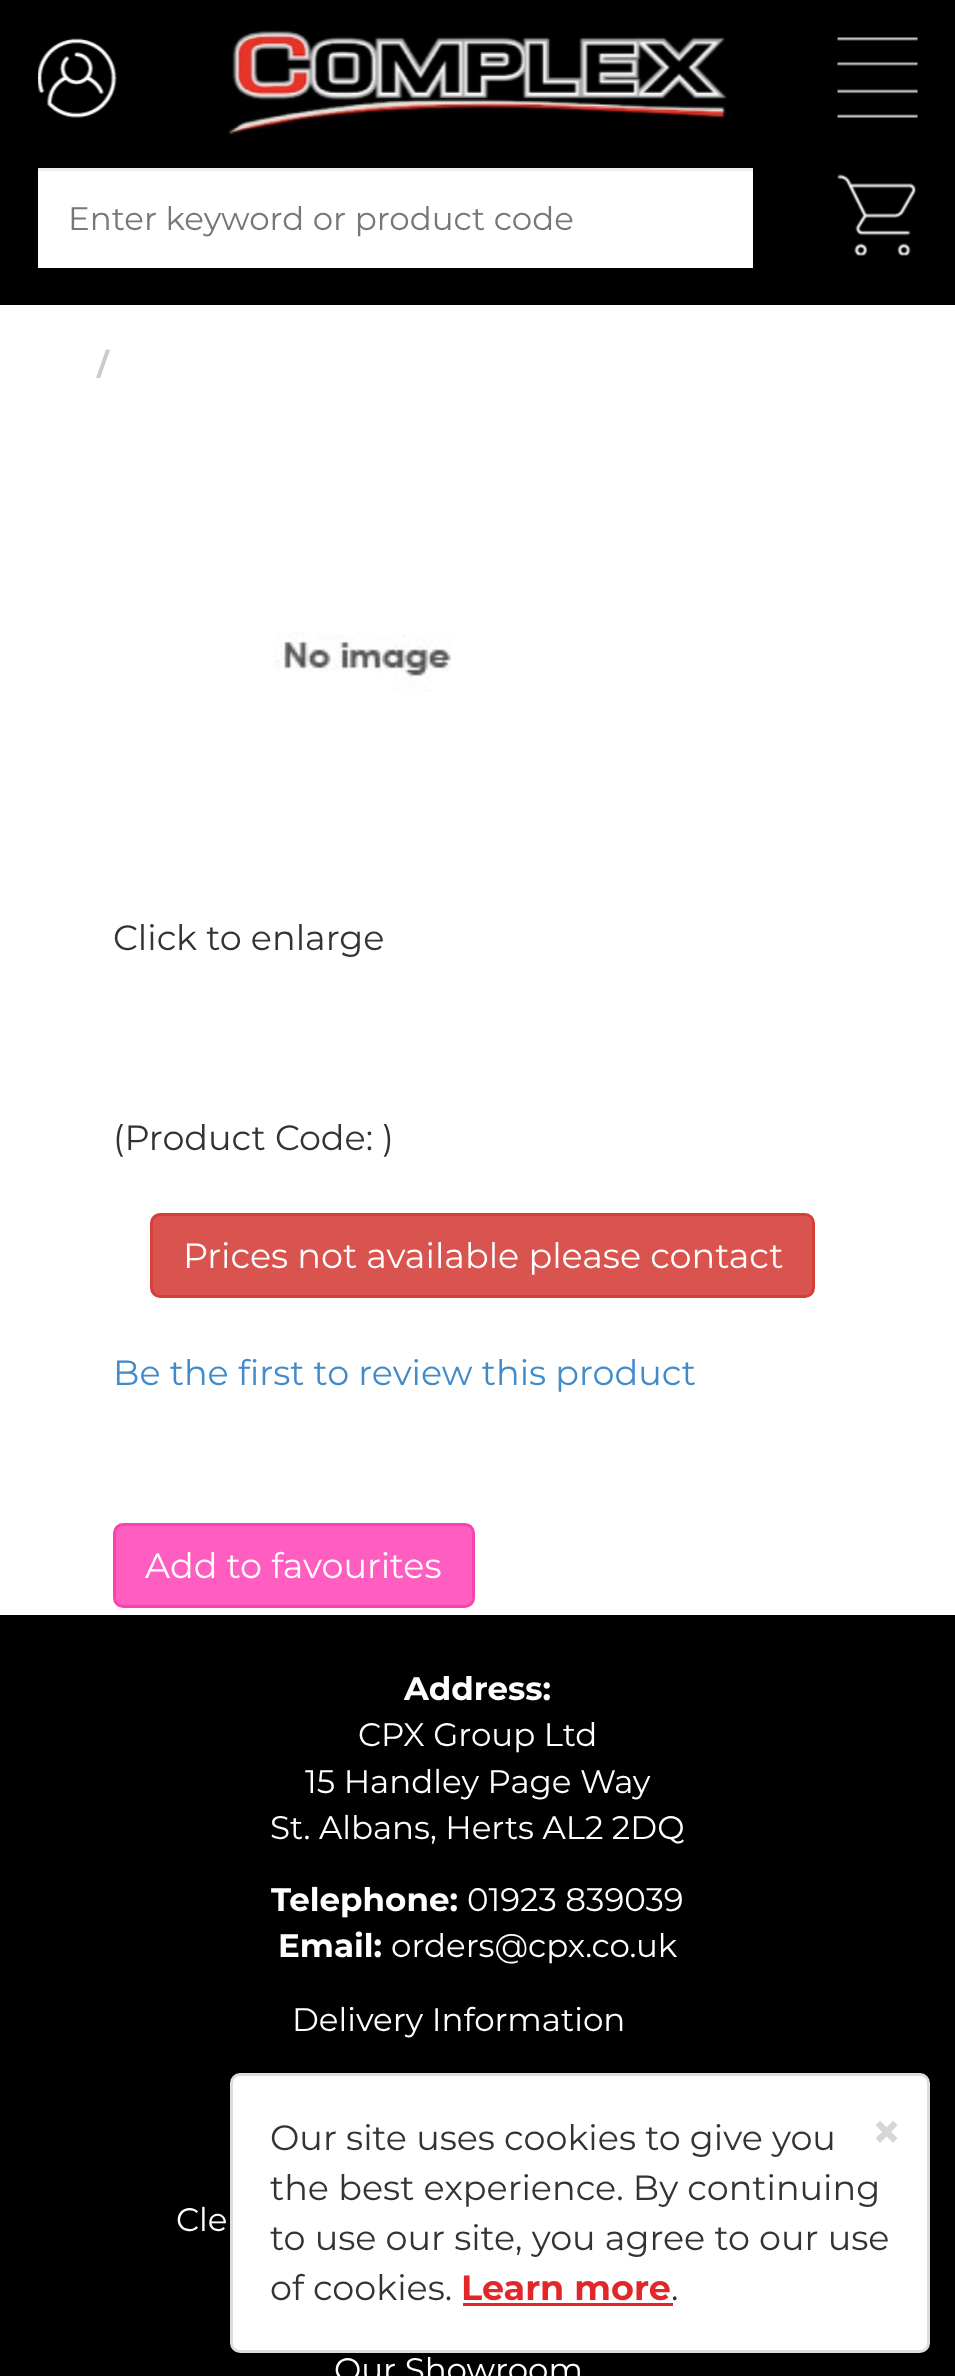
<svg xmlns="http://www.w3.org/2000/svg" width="955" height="2376">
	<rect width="100%" height="100%" fill="#FFFFFF" />
	<rect x="0" y="0" width="955" height="305" fill="#000000" />
	<image x="228" y="30" width="499" height="107" href="assets/img1.png" />
	<image x="38" y="38" width="79" height="80" href="assets/img2.png" />
	<image x="837" y="37" width="81" height="81" href="assets/img3.png" />
	<image x="837" y="174" width="79" height="82" href="assets/img4.png" />
	<rect x="38" y="171" width="715" height="97" fill="#FFFFFF" />
	<rect x="38" y="168" width="715" height="3" fill="#ECECEC" />
	<text x="68" y="230" font-family="Montserrat" font-size="32.5" fill="#777777">Enter keyword or product code</text>
	<text x="97" y="375" font-family="Montserrat" font-size="30" font-weight="700" fill="#CCCCCC">/</text>
	<image x="273" y="632" width="179" height="60" href="assets/img5.png" />
	<g font-family="Montserrat" font-size="35" fill="#333333">
		<text x="113" y="950">Click to enlarge</text>
		<text x="113" y="1150">(Product Code: )</text>
	</g>
	<rect x="151.5" y="1214.5" width="662" height="82" rx="8.5" fill="#D9534F" stroke="#D43F3A" stroke-width="3" />
	<text x="183" y="1268" font-family="Montserrat" font-size="35" fill="#FFFFFF">Prices not available please contact</text>
	<text x="113" y="1385" font-family="Montserrat" font-size="35" fill="#428BCA">Be the first to review this product</text>
	<rect x="114.5" y="1524.5" width="359" height="82" rx="8.5" fill="#FF5EC0" stroke="#F643B0" stroke-width="3" />
	<text x="145" y="1578" font-family="Montserrat" font-size="35" fill="#FFFFFF">Add to favourites</text>
	<rect x="0" y="1615" width="955" height="761" fill="#000000" />
	<text x="404" y="1700" font-family="Montserrat" font-size="32.5" font-weight="700" fill="#FFFFFF">Address:</text>
	<g font-family="Montserrat" font-size="32.5" fill="#FFFFFF">
		<text x="358" y="1746">CPX Group Ltd</text>
		<text x="305" y="1793">15 Handley Page Way</text>
		<text x="270" y="1839">St. Albans, Herts AL2 2DQ</text>
	</g>
	<text x="271" y="1911" font-family="Montserrat" font-size="32.5" font-weight="700" fill="#FFFFFF">Telephone:</text>
	<text x="467" y="1911" font-family="Montserrat" font-size="32.5" fill="#FFFFFF">01923 839039</text>
	<text x="278" y="1957" font-family="Montserrat" font-size="32.5" font-weight="700" fill="#FFFFFF">Email:</text>
	<g font-family="Montserrat" font-size="32.5" fill="#FFFFFF">
		<text x="391" y="1957">orders@cpx.co.uk</text>
		<text x="292" y="2031">Delivery Information</text>
		<text x="176" y="2231">Cle</text>
		<text x="334" y="2381">Our Showroom</text>
	</g>
	<rect x="231.5" y="2074.5" width="697" height="277" rx="8.5" fill="#FFFFFF" stroke="#DDDDDD" stroke-width="3" />
	<text x="270" y="2150" font-family="Montserrat" font-size="35" fill="#333333">Our site uses cookies to give you</text>
	<text x="871" y="2150" font-family="Montserrat" font-size="52" font-weight="700" fill="#D6D6D6">×</text>
	<g font-family="Montserrat" font-size="35" fill="#333333">
		<text x="270" y="2200">the best experience. By continuing</text>
		<text x="270" y="2250">to use our site, you agree to our use</text>
		<text x="270" y="2300">of cookies.</text>
	</g>
	<text x="461" y="2300" font-family="Montserrat" font-size="35" font-weight="700" fill="#E2272B">Learn more</text>
	<rect x="463" y="2303" width="210" height="3" fill="#E2272B" />
	<text x="671" y="2300" font-family="Montserrat" font-size="35" fill="#333333">.</text>
</svg>
